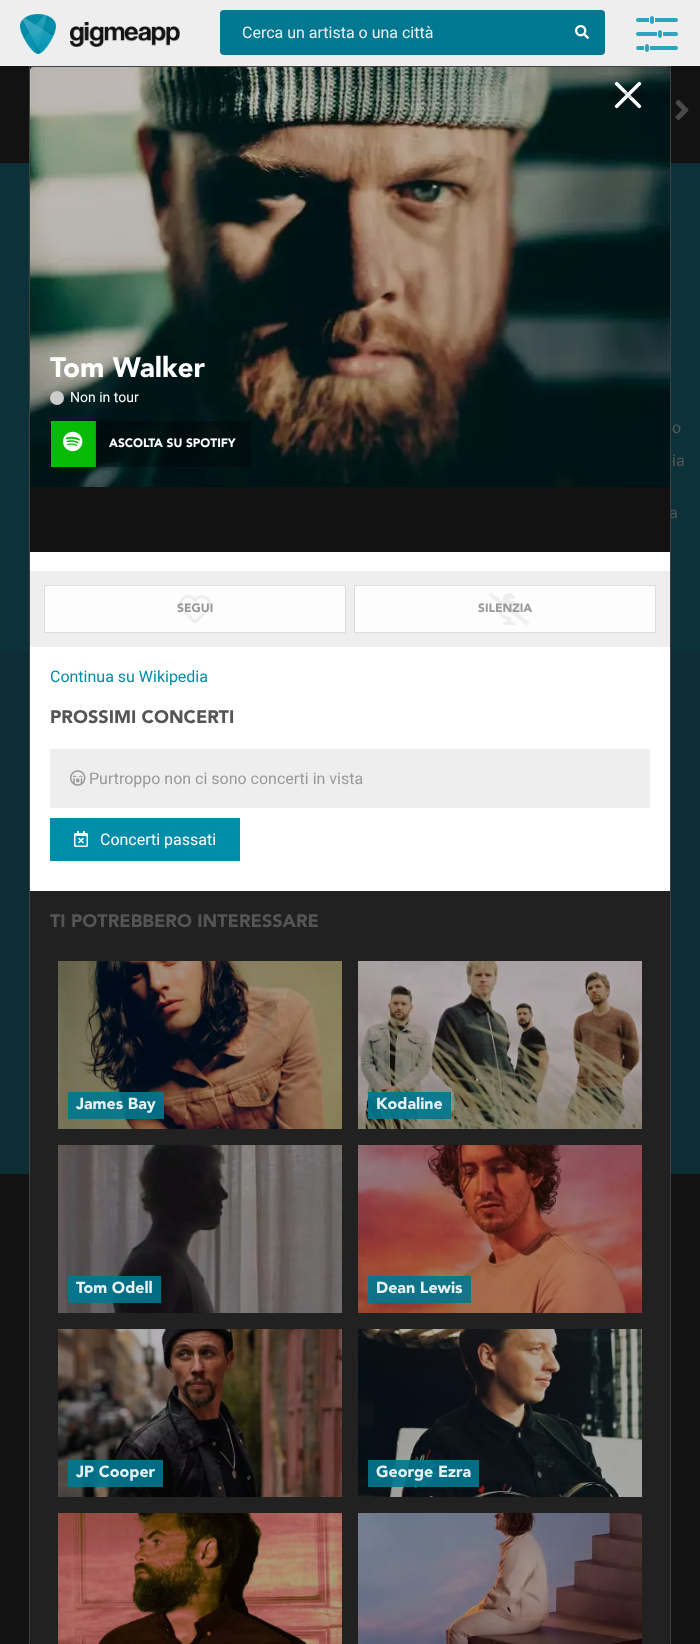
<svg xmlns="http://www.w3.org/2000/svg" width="700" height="1644">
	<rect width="100%" height="100%" fill="#121212" />
	<rect x="0" y="0" width="700" height="66" fill="#EEEEEE" />
	<image x="20" y="14" width="36" height="40" href="assets/img1.png" />
	<image x="70" y="22" width="110" height="25" href="assets/img2.png" />
	<rect x="220" y="10" width="385" height="45" rx="4" fill="#007891" />
	<text x="242" y="38" font-family="Roboto" font-size="16" fill="#EEEEEE">Cerca un artista o una città</text>
	<image x="575" y="25" width="14" height="14" href="assets/img3.png" />
	<rect x="636" y="18" width="42" height="4" rx="2" fill="#2CA6BF" />
	<rect x="649.5" y="15.5" width="5" height="9" rx="2.5" fill="#2CA6BF" stroke="#FFFFFF" />
	<rect x="636" y="32" width="42" height="4" rx="2" fill="#2CA6BF" />
	<rect x="657.5" y="29.5" width="5" height="9" rx="2.5" fill="#2CA6BF" stroke="#FFFFFF" />
	<rect x="636" y="46" width="42" height="4" rx="2" fill="#2CA6BF" />
	<rect x="644.5" y="43.5" width="5" height="9" rx="2.5" fill="#2CA6BF" stroke="#FFFFFF" />
	<rect x="0" y="163" width="700" height="489" fill="#0D3138" />
	<text x="669" y="518" font-family="Roboto" font-size="16" fill="#555555">a</text>
	<rect x="0" y="652" width="700" height="522" fill="#0D2D34" />
	<rect x="30" y="163" width="640" height="1011" fill="#121212" />
	<rect x="29.5" y="66.5" width="641" height="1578" fill="none" stroke="#414141" />
	<image x="30" y="67" width="640" height="420" href="assets/img4.png" />
	<path d="M34 67H666C668 67 670 69 670 71V487H30V71C30 69 32 67 34 67Z" fill="#000000" fill-opacity="0.1" />
	<path d="M34 67H666C668 67 670 69 670 71V487H30V71C30 69 32 67 34 67Z" fill="#000000" fill-opacity="0.15" />
	<path d="M618 82.5L640.5 105C641.5 105.5 641.5 107 640.5 107.5C640 108.5 638.5 108.5 638 107.5L615.5 85C614.5 84.5 614.5 83 615.5 82.5C616 81.5 617.5 81.5 618 82.5Z" fill="#FFFFFF" />
	<rect x="609" y="92" width="38" height="6" rx="3" fill="#000000" fill-opacity="0.2" filter="blur(0.5px)" />
	<path d="M615.5 105L638 82.5C638.5 81.5 640 81.5 640.5 82.5C641.5 83 641.5 84.5 640.5 85L618 107.5C617.5 108.5 616 108.5 615.5 107.5C614.5 107 614.5 105.5 615.5 105Z" fill="#FFFFFF" />
	<text x="50" y="377" font-family="Avenir" font-size="28" font-weight="900" fill="#FFFFFF">Tom Walker</text>
	<circle cx="57" cy="398" r="7" fill="#CCCCCC" />
	<text x="70" y="402" font-family="Roboto" font-size="14" fill="#FFFFFF">Non in tour</text>
	<rect x="50" y="421" width="200" height="46" fill="#000000" fill-opacity="0.3" />
	<rect x="51" y="421" width="44" height="46" fill="#08BB06" />
	<rect x="95" y="421" width="1" height="46" fill="#07A805" />
	<image x="63" y="431" width="20" height="21" href="assets/img5.png" />
	<text x="109" y="447" font-family="Avenir" font-size="12" font-weight="900" fill="#FFFFFF">ASCOLTA SU SPOTIFY</text>
	<rect x="30" y="552" width="640" height="19" fill="#FFFFFF" />
	<rect x="30" y="571" width="640" height="76" fill="#EEEEEE" />
	<rect x="44.5" y="585.5" width="301" height="47" fill="#FDFDFD" stroke="#DDDDDD" />
	<text x="177" y="612" font-family="Avenir" font-size="12" font-weight="900" fill="#999999">SEGUI</text>
	<image x="179" y="595" width="32" height="28" href="assets/img6.png" />
	<rect x="354.5" y="585.5" width="301" height="47" fill="#FDFDFD" stroke="#DDDDDD" />
	<text x="478" y="612" font-family="Avenir" font-size="12" font-weight="900" fill="#999999">SILENZIA</text>
	<image x="489" y="593" width="40" height="32" href="assets/img7.png" />
	<rect x="30" y="647" width="640" height="244" fill="#FFFFFF" />
	<text x="50" y="682" font-family="Roboto" font-size="16" fill="#008DAA">Continua su Wikipedia</text>
	<text x="50" y="723" font-family="Avenir" font-size="18" font-weight="900" fill="#555555">PROSSIMI CONCERTI</text>
	<rect x="50" y="749" width="600" height="59" fill="#EEEEEE" />
	<image x="70" y="770" width="16" height="16" href="assets/img8.png" />
	<text x="89" y="784" font-family="Roboto" font-size="16" fill="#999999">Purtroppo non ci sono concerti in vista</text>
	<rect x="50" y="818" width="190" height="43" fill="#008DAA" />
	<image x="74" y="831" width="14" height="16" href="assets/img9.png" />
	<text x="100" y="845" font-family="Roboto" font-size="16" fill="#FFFFFF">Concerti passati</text>
	<path d="M30 891H670V1641C670 1643 668 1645 666 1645H34C32 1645 30 1643 30 1641Z" fill="#212121" />
	<text x="50" y="927" font-family="Avenir" font-size="18" font-weight="900" fill="#555555">TI POTREBBERO INTERESSARE</text>
	<image x="58" y="961" width="284" height="168" href="assets/img10.png" />
	<rect x="68" y="1092" width="96" height="27" fill="#007891" fill-opacity="0.9" />
	<text x="76" y="1109" font-family="Avenir" font-size="16" font-weight="900" fill="#E6F1F3">James Bay</text>
	<image x="358" y="961" width="284" height="168" href="assets/img11.png" />
	<rect x="368" y="1092" width="83" height="27" fill="#007891" fill-opacity="0.9" />
	<text x="376" y="1109" font-family="Avenir" font-size="16" font-weight="900" fill="#E6F1F3">Kodaline</text>
	<image x="58" y="1145" width="284" height="168" href="assets/img12.png" />
	<rect x="68" y="1276" width="93" height="27" fill="#007891" fill-opacity="0.9" />
	<text x="76" y="1293" font-family="Avenir" font-size="16" font-weight="900" fill="#E6F1F3">Tom Odell</text>
	<image x="358" y="1145" width="284" height="168" href="assets/img13.png" />
	<rect x="368" y="1276" width="103" height="27" fill="#007891" fill-opacity="0.9" />
	<text x="376" y="1293" font-family="Avenir" font-size="16" font-weight="900" fill="#E6F1F3">Dean Lewis</text>
	<image x="58" y="1329" width="284" height="168" href="assets/img14.png" />
	<rect x="68" y="1460" width="95" height="27" fill="#007891" fill-opacity="0.9" />
	<text x="76" y="1477" font-family="Avenir" font-size="16" font-weight="900" fill="#E6F1F3">JP Cooper</text>
	<image x="358" y="1329" width="284" height="168" href="assets/img15.png" />
	<rect x="368" y="1460" width="111" height="27" fill="#007891" fill-opacity="0.9" />
	<text x="376" y="1477" font-family="Avenir" font-size="16" font-weight="900" fill="#E6F1F3">George Ezra</text>
	<image x="58" y="1513" width="284" height="131" href="assets/img16.png" />
	<image x="358" y="1513" width="284" height="131" href="assets/img17.png" />
	<image x="675" y="100" width="14" height="20" href="assets/img18.png" />
	<g font-family="Roboto" font-size="16" fill="#555555">
		<text x="672" y="433">o</text>
		<text x="672" y="466">ia</text>
	</g>
</svg>
